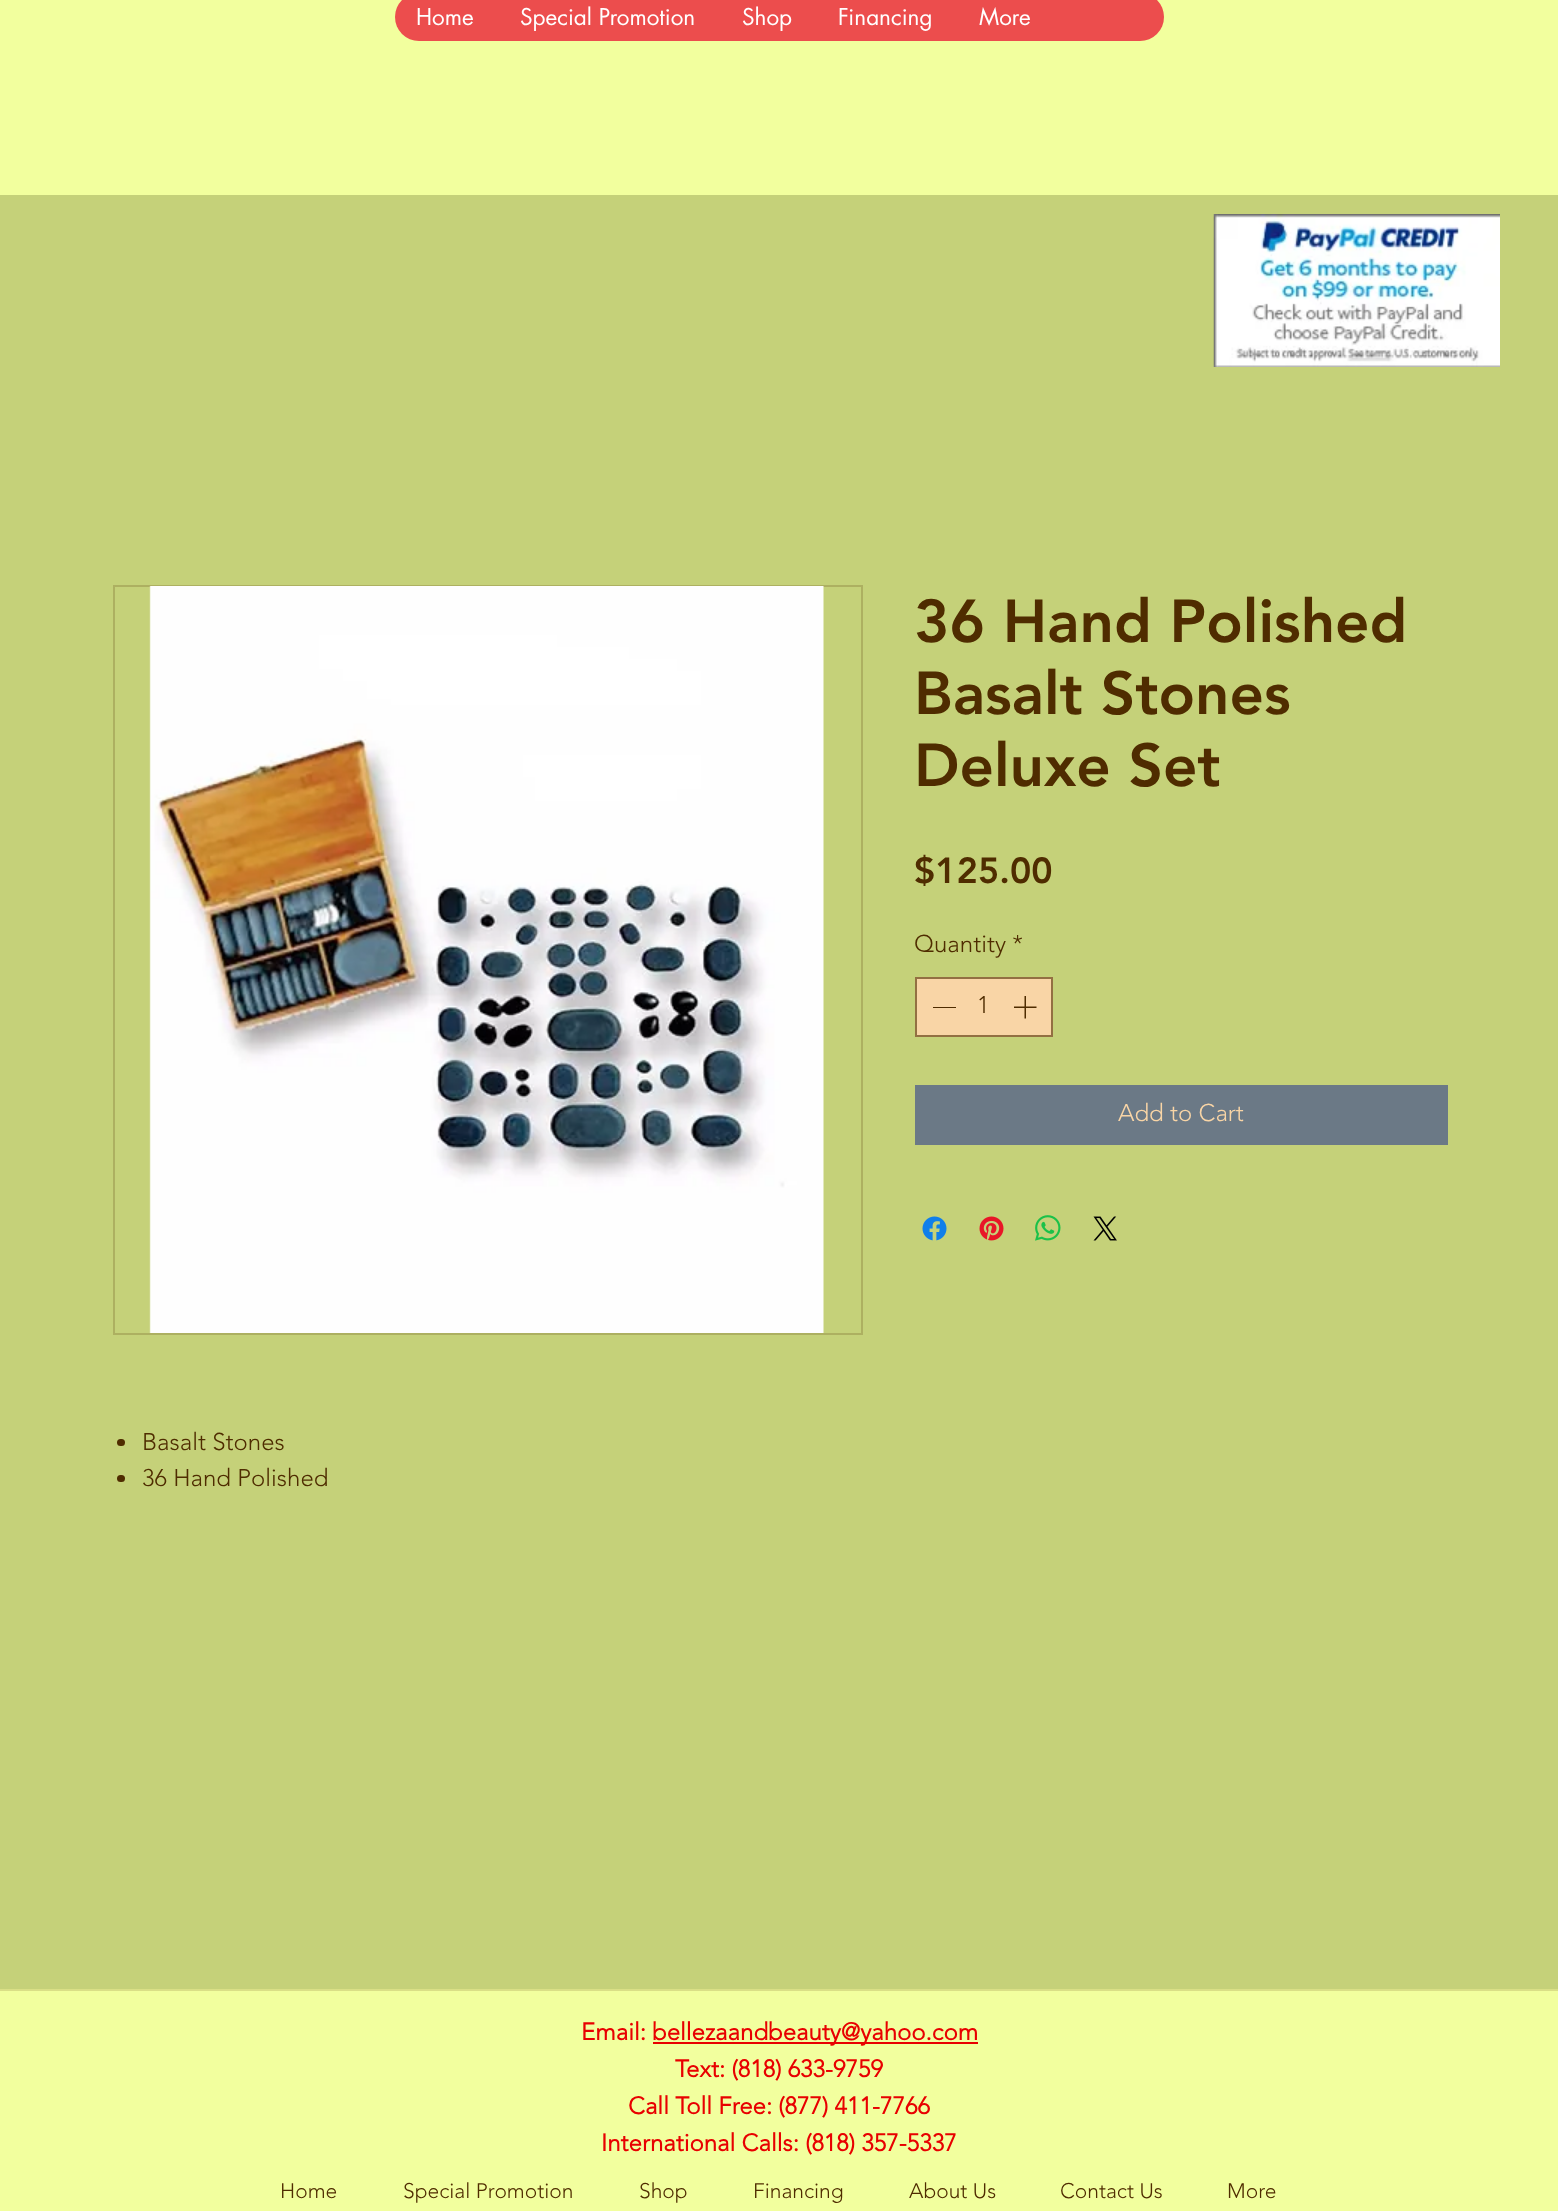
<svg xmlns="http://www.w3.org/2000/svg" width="1558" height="2211">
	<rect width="100%" height="100%" fill="#F2FF9E" />
	<rect x="395" y="-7" width="769" height="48" rx="24" fill="#EC4D4D" />
	<g font-family="futura" font-size="22.5" fill="#FFFFFF">
		<text x="416" y="25">Home</text>
		<text x="520" y="25">Special Promotion</text>
		<text x="742" y="25">Shop</text>
		<text x="838" y="25">Financing</text>
		<text x="979" y="25">More</text>
	</g>
	<rect x="0" y="195" width="1558" height="1794" fill="#C5D179" />
	<image x="1213" y="214" width="287" height="153" href="assets/img1.png" />
	<g font-family="'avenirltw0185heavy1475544'" font-size="60" font-weight="900" fill="#4F2C00">
		<text x="914" y="642">36 Hand Polished</text>
		<text x="914" y="714">Basalt Stones</text>
		<text x="914" y="786">Deluxe Set</text>
	</g>
	<text x="914" y="883" font-family="'avenirltw0185heavy1475544'" font-size="36" font-weight="900" fill="#4F2C00">$125.00</text>
	<text x="914" y="952" font-family="'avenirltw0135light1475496'" font-size="24" font-weight="300" fill="#4F2C00">Quantity *</text>
	<rect x="916" y="978" width="136" height="58" fill="#F9D5A6" stroke="#937042" stroke-width="2" />
	<rect x="933" y="1007" width="23" height="1" fill="#4F2C00" />
	<text x="977" y="1013" font-family="'avenirltw0135light1475496'" font-size="24" font-weight="300" fill="#4F2C00">1</text>
	<image x="1014" y="996" width="23" height="23" href="assets/img2.png" />
	<rect x="915" y="1085" width="533" height="60" fill="#6B7986" />
	<text x="1118" y="1121" font-family="'avenirltw0135light1475496'" font-size="24" font-weight="300" fill="#F9D5A6">Add to Cart</text>
	<image x="922" y="1216" width="25" height="25" href="assets/img3.png" />
	<image x="979" y="1216" width="25" height="25" href="assets/img4.png" />
	<image x="1035" y="1215" width="26" height="26" href="assets/img5.png" />
	<image x="1093" y="1216" width="24" height="25" href="assets/img6.png" />
	<rect x="114" y="586" width="748" height="748" fill="none" stroke="#ADB061" stroke-width="2" />
	<image x="149" y="586" width="675" height="747" href="assets/img7.png" />
	<rect x="117" y="1439" width="8" height="7" rx="3.5" fill="#4F2C00" />
	<text x="142" y="1450" font-family="'avenirltw0135light1475496'" font-size="24" font-weight="300" fill="#4F2C00">Basalt Stones</text>
	<rect x="117" y="1475" width="8" height="7" rx="3.5" fill="#4F2C00" />
	<text x="142" y="1486" font-family="'avenirltw0135light1475496'" font-size="24" font-weight="300" fill="#4F2C00">36 Hand Polished</text>
	<rect x="0" y="1989" width="1558" height="2" fill="#DADF86" />
	<text x="581" y="2040" font-family="'avenirltw0135light1475496'" font-size="24" font-weight="700" fill="#E80000">Email:</text>
	<rect x="653" y="2042" width="325" height="2" fill="#E80000" />
	<g font-family="'avenirltw0135light1475496'" font-size="24" font-weight="700" fill="#E80000">
		<text x="652" y="2040">bellezaandbeauty@yahoo.com</text>
		<text x="675" y="2077">Text: (818) 633-9759</text>
		<text x="628" y="2114">Call Toll Free: (877) 411-7766</text>
		<text x="601" y="2151">International Calls: (818) 357-5337</text>
	</g>
	<g font-family="'avenirltw0135light1475496'" font-size="21" font-weight="300" fill="#4F2C00">
		<text x="280" y="2198">Home</text>
		<text x="403" y="2198">Special Promotion</text>
		<text x="639" y="2198">Shop</text>
		<text x="753" y="2198">Financing</text>
		<text x="909" y="2198">About Us</text>
		<text x="1060" y="2198">Contact Us</text>
		<text x="1227" y="2198">More</text>
	</g>
</svg>
